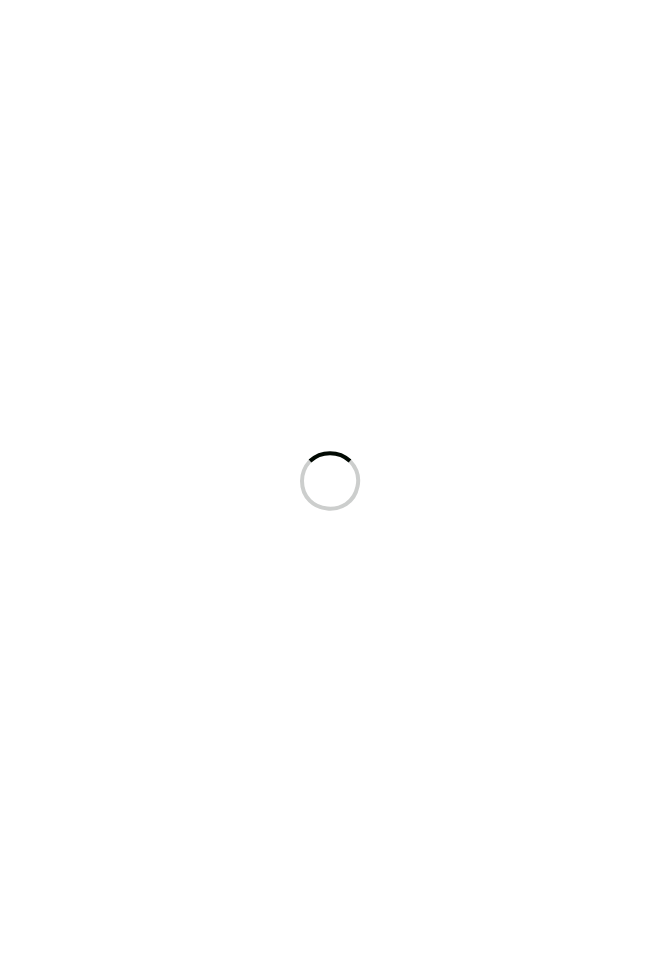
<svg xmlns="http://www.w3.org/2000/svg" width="659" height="961">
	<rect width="100%" height="100%" fill="#FFFFFF" />
	<path d="M310 461C321 450.5 339 450.5 350 461" fill="none" stroke="#020A03" stroke-width="4" />
	<path d="M350 461C356.5 468 359.5 477.5 357.5 486.5C351 519 302 514.5 302 481C302 473.5 305 466.5 310 461" fill="none" stroke="#020A03" stroke-opacity="0.2" stroke-width="4" />
</svg>
